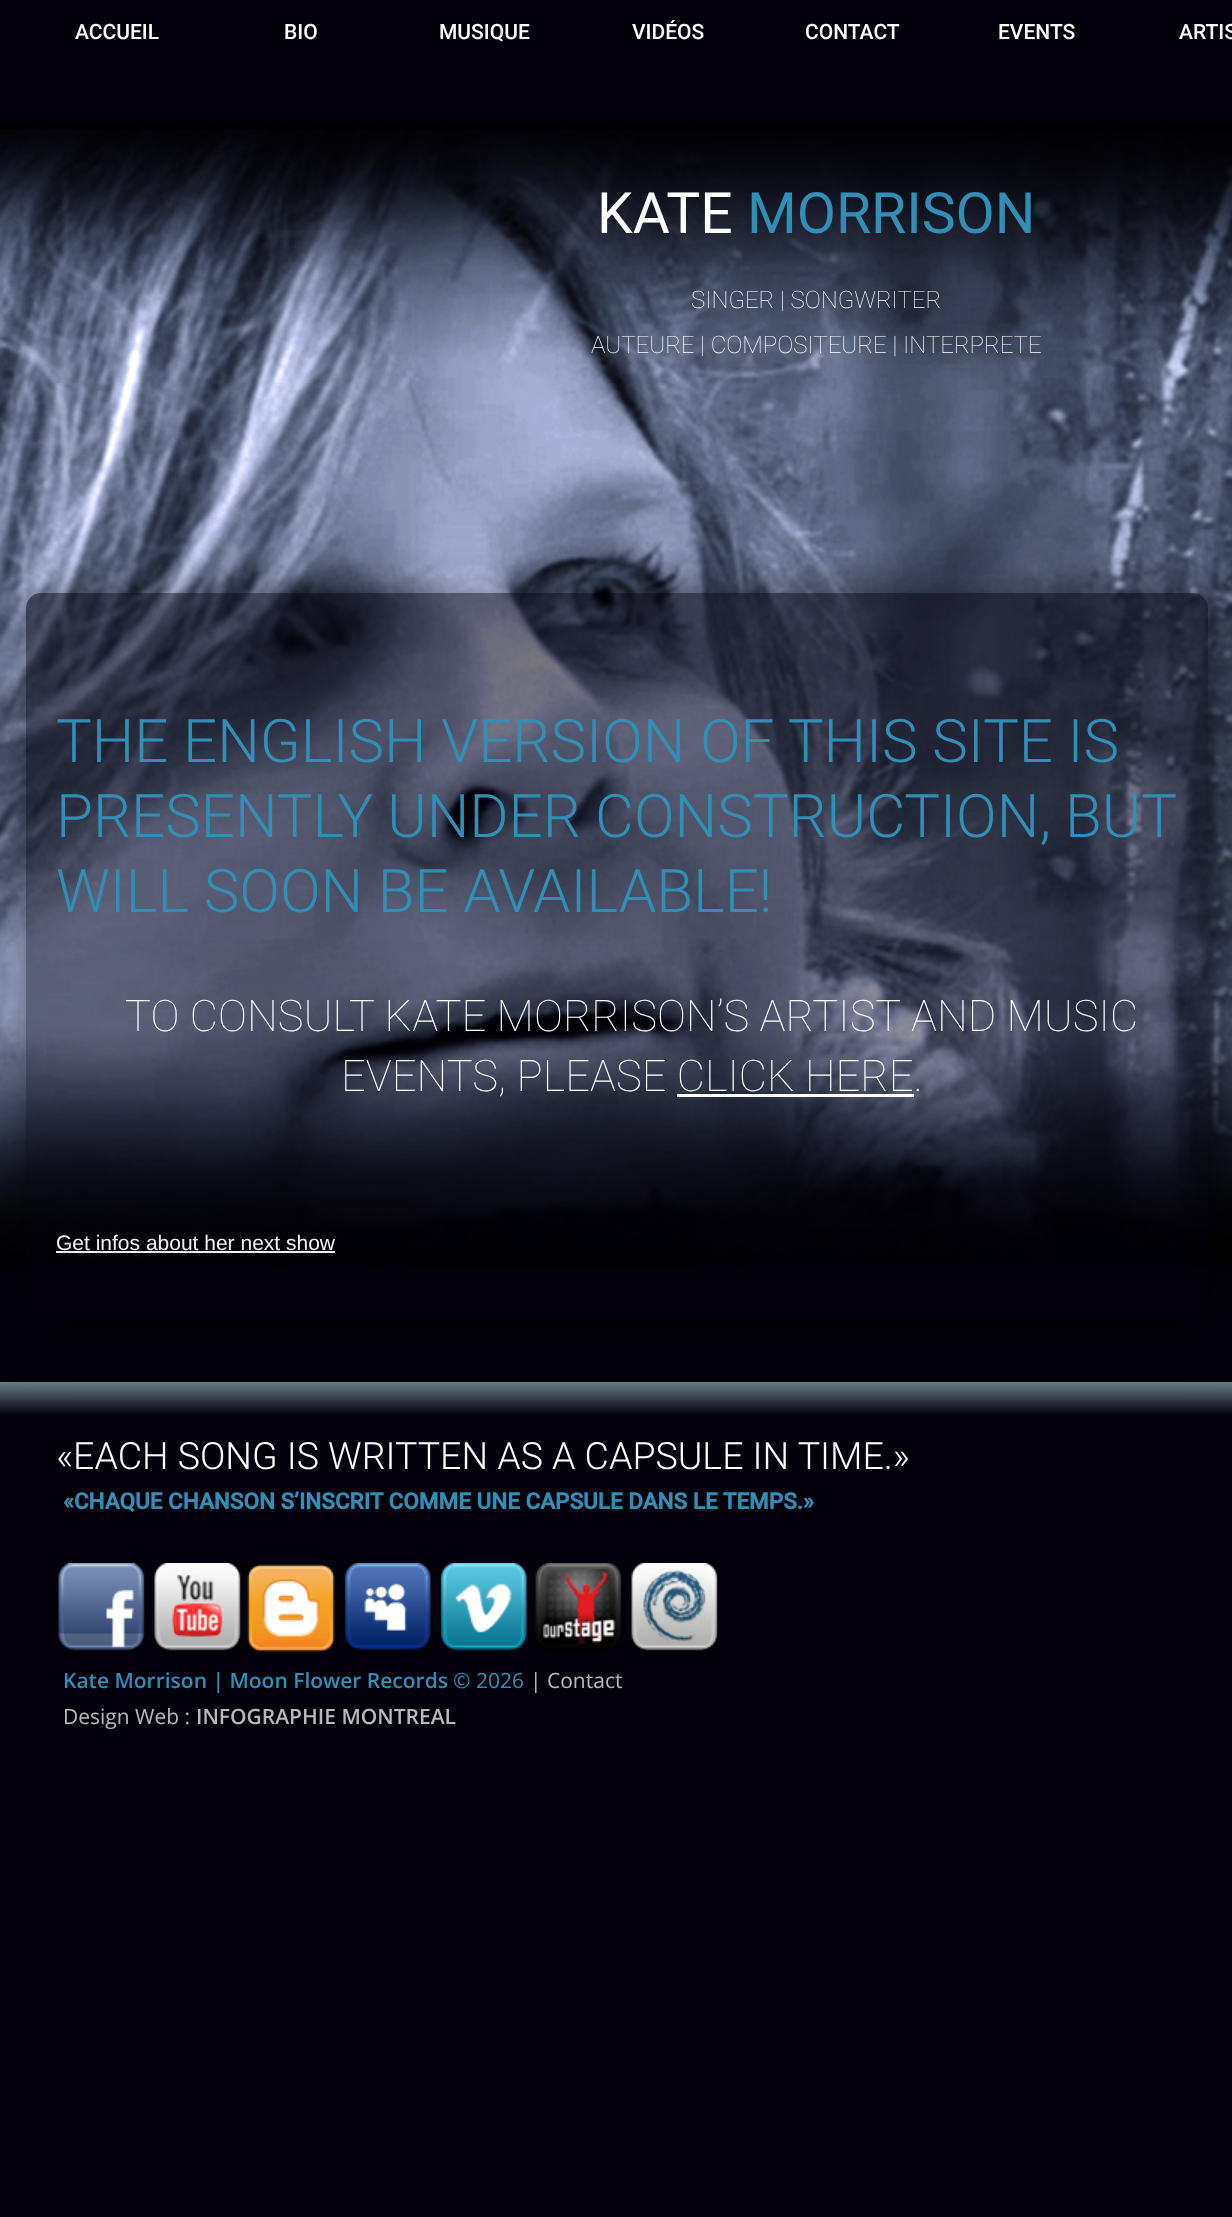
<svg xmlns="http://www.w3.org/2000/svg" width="1232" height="2217">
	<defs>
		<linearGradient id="g1" gradientUnits="userSpaceOnUse" x1="617" y1="1382" x2="617" y2="1532"><stop offset="0" stop-color="#697D85" /><stop offset="0.22" stop-color="#03000C" /></linearGradient>
		<clipPath id="clip1"><path d="M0 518H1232V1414H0ZM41 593H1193C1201.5 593 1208 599.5 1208 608V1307C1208 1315.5 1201.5 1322 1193 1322H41C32.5 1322 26 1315.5 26 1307V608C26 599.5 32.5 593 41 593Z" clip-rule="evenodd" /></clipPath>
		<linearGradient id="g2" gradientUnits="userSpaceOnUse" x1="616" y1="592" x2="617" y2="1322"><stop offset="0" stop-color="#03000C" stop-opacity="0.55" /><stop offset="0.01" stop-color="#03000C" stop-opacity="0.55" /><stop offset="1" stop-color="#03000C" stop-opacity="0.35" /></linearGradient>
	</defs>
	<rect width="100%" height="100%" fill="#03000C" />
	<image x="0" y="120" width="1232" height="1152" href="assets/img1.png" />
	<g font-family="Roboto" font-size="21" font-weight="500" fill="#FFFFFF">
		<text x="75" y="39">ACCUEIL</text>
		<text x="284" y="39">BIO</text>
		<text x="439" y="39">MUSIQUE</text>
		<text x="632" y="39">VIDÉOS</text>
		<text x="805" y="39">CONTACT</text>
		<text x="998" y="39">EVENTS</text>
		<text x="1179" y="39">ARTIS</text>
	</g>
	<text x="597" y="233" font-family="Roboto" font-size="57" fill="#FFFFFF">KATE</text>
	<text x="747" y="233" font-family="Roboto" font-size="57" fill="#318FB5">MORRISON</text>
	<g font-family="Roboto" font-size="24" font-weight="100" fill="#FFFFFF">
		<text x="691" y="308">SINGER | SONGWRITER</text>
		<text x="591" y="353">AUTEURE | COMPOSITEURE | INTERPRETE</text>
	</g>
	<rect x="0" y="1382" width="1232" height="32" fill="url(#g1)" />
	<g clip-path="url(#clip1)">
		<rect x="39" y="606" width="1173" height="720" rx="11" fill="#000000" fill-opacity="0.75" filter="blur(29px)" />
	</g>
	<rect x="26" y="593" width="1182" height="729" rx="15" fill="url(#g2)" />
	<g font-family="Roboto" font-size="60" font-weight="300" fill="#318FB5">
		<text x="56" y="762">THE ENGLISH VERSION OF THIS SITE IS</text>
		<text x="56" y="837" word-spacing="-0.5">PRESENTLY UNDER CONSTRUCTION, BUT</text>
		<text x="56" y="912">WILL SOON BE AVAILABLE!</text>
	</g>
	<g font-family="Roboto" font-size="43.5" font-weight="100" fill="#FFFFFF">
		<text x="125" y="1031">TO CONSULT KATE MORRISON’S ARTIST AND MUSIC</text>
		<text x="341" y="1091">EVENTS, PLEASE CLICK HERE.</text>
	</g>
	<rect x="677" y="1094" width="237" height="3" fill="#FFFFFF" />
	<text x="56" y="1250" font-family="Liberation Sans" font-size="21" fill="#F1F2F2">Get infos about her next show</text>
	<rect x="56" y="1251" width="279" height="2" fill="#F1F2F2" />
	<text x="56" y="1469" font-family="Roboto" font-size="37.5" font-weight="300" fill="#FFFFFF">«EACH SONG IS WRITTEN AS A CAPSULE IN TIME.»</text>
	<text x="63" y="1509" font-family="Roboto" font-size="22.5" font-weight="700" fill="#318FB5">«CHAQUE CHANSON S’INSCRIT COMME UNE CAPSULE DANS LE TEMPS.»</text>
	<image x="58" y="1563" width="87" height="89" href="assets/img2.png" />
	<image x="154" y="1563" width="87" height="89" href="assets/img3.png" />
	<image x="247" y="1564" width="89" height="89" href="assets/img4.png" />
	<image x="344" y="1563" width="87" height="89" href="assets/img5.png" />
	<image x="440" y="1563" width="87" height="89" href="assets/img6.png" />
	<image x="535" y="1563" width="87" height="89" href="assets/img7.png" />
	<image x="631" y="1563" width="87" height="89" href="assets/img8.png" />
	<text x="63" y="1688" font-family="Open Sans" font-size="21" font-weight="600" fill="#318FB5">Kate Morrison | Moon Flower Records</text>
	<text x="453" y="1688" font-family="Open Sans" font-size="21" fill="#318FB5">© 2026</text>
	<g font-family="Open Sans" font-size="21" fill="#B9B9B9">
		<text x="530" y="1688">| Contact</text>
		<text x="63" y="1724">Design Web :</text>
	</g>
	<text x="196" y="1724" font-family="Open Sans" font-size="21" font-weight="600" fill="#B9B9B9">INFOGRAPHIE MONTREAL</text>
</svg>
